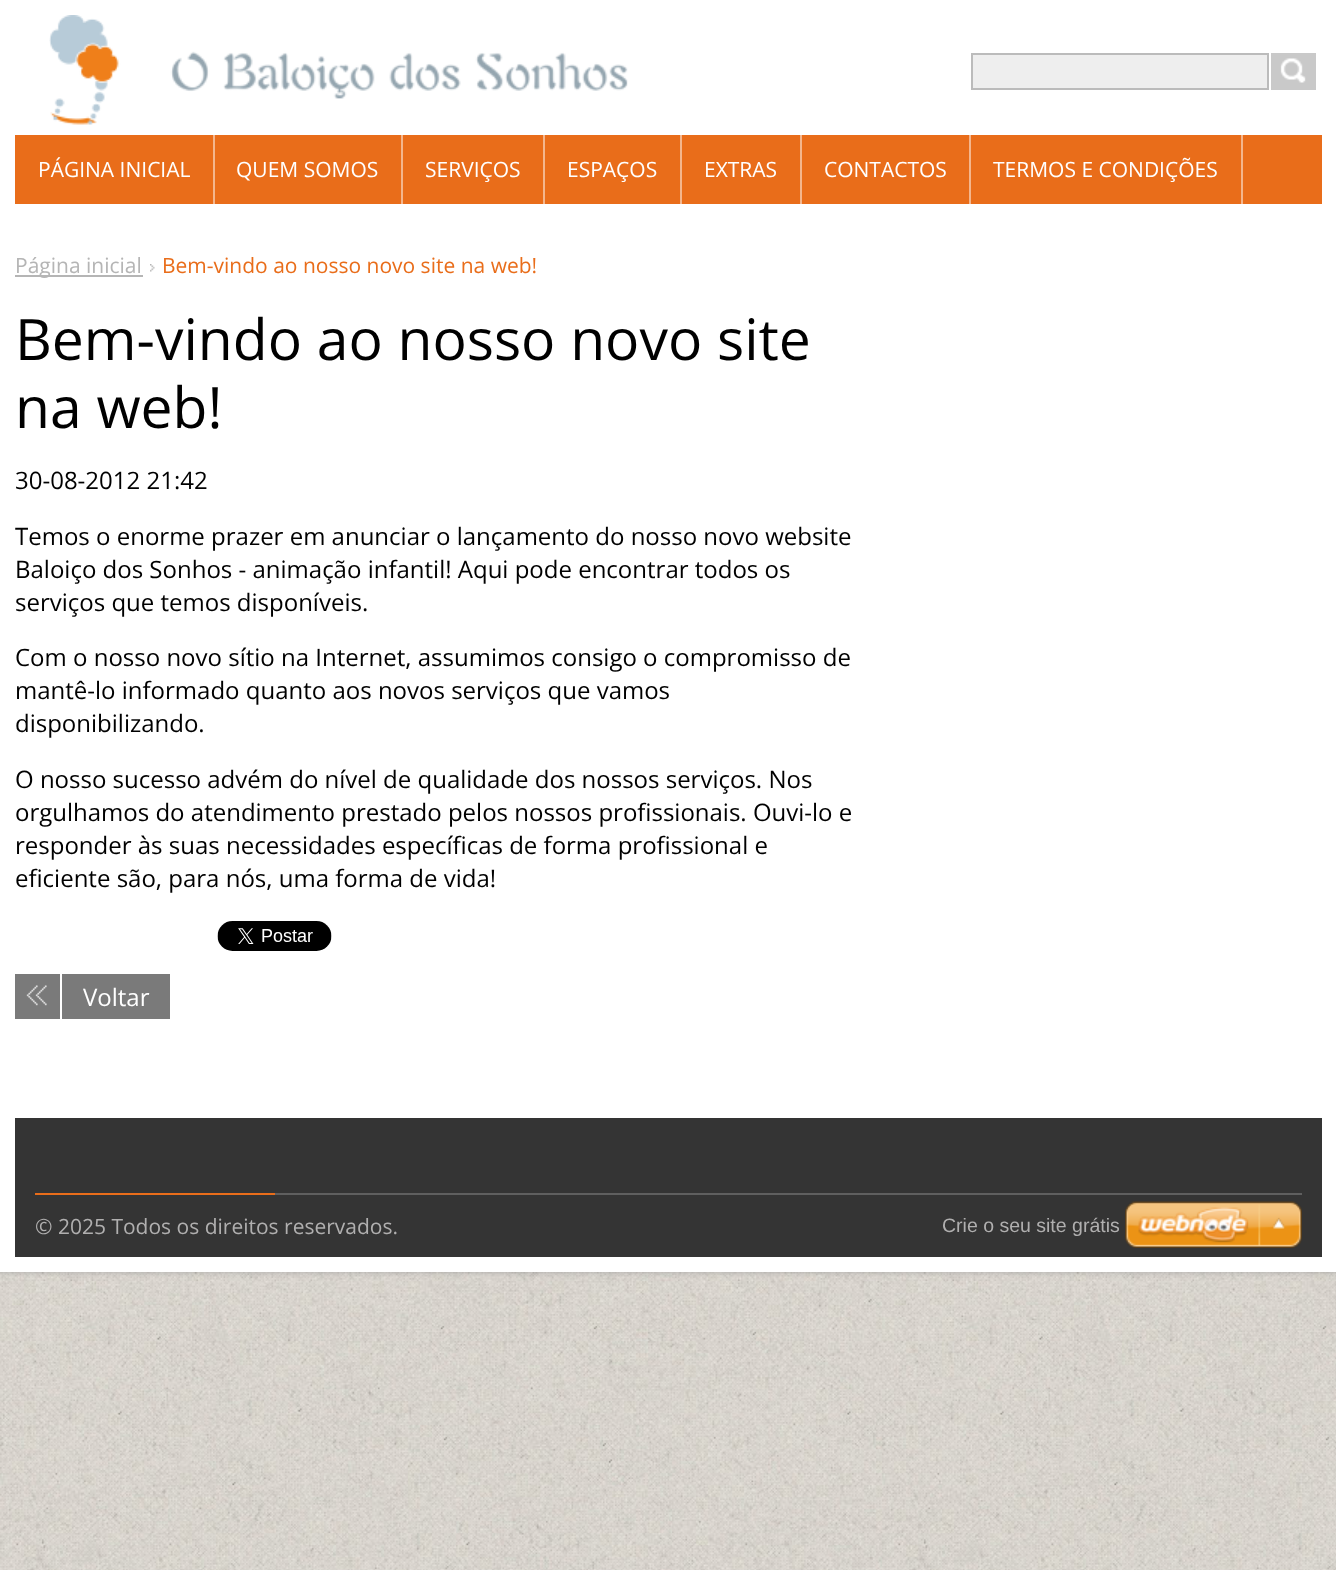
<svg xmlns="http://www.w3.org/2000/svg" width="1336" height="1570">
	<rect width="100%" height="100%" fill="#FFFFFF" />
	<image x="0" y="1272" width="1336" height="298" href="assets/img1.png" />
	<rect x="0" y="0" width="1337" height="1272" fill="#989898" fill-opacity="0.75" filter="blur(3px)" />
	<rect x="0" y="0" width="1336" height="1272" fill="#FFFFFF" />
	<image x="49" y="15" width="579" height="110" href="assets/img2.png" />
	<rect x="972" y="54" width="296" height="35" fill="#EEEEEE" stroke="#BBBBBB" stroke-width="2" />
	<rect x="1271" y="53" width="45" height="37" fill="#C9C9C9" />
	<image x="1280" y="58" width="26" height="25" href="assets/img3.png" />
	<rect x="15" y="135" width="1307" height="69" fill="#E96D1A" />
	<rect x="213" y="135" width="2" height="69" fill="#F4B68D" />
	<text x="38" y="177" font-family="Open Sans" font-size="21" fill="#FFFFFF">PÁGINA INICIAL</text>
	<rect x="401" y="135" width="2" height="69" fill="#F4B68D" />
	<text x="236" y="177" font-family="Open Sans" font-size="21" fill="#FFFFFF">QUEM SOMOS</text>
	<rect x="543" y="135" width="2" height="69" fill="#F4B68D" />
	<text x="425" y="177" font-family="Open Sans" font-size="21" fill="#FFFFFF">SERVIÇOS</text>
	<rect x="680" y="135" width="2" height="69" fill="#F4B68D" />
	<text x="567" y="177" font-family="Open Sans" font-size="21" fill="#FFFFFF">ESPAÇOS</text>
	<rect x="800" y="135" width="2" height="69" fill="#F4B68D" />
	<text x="704" y="177" font-family="Open Sans" font-size="21" fill="#FFFFFF">EXTRAS</text>
	<rect x="969" y="135" width="2" height="69" fill="#F4B68D" />
	<text x="824" y="177" font-family="Open Sans" font-size="21" fill="#FFFFFF">CONTACTOS</text>
	<rect x="1241" y="135" width="2" height="69" fill="#F4B68D" />
	<text x="993" y="177" font-family="Open Sans" font-size="21" fill="#FFFFFF">TERMOS E CONDIÇÕES</text>
	<rect x="15" y="275" width="128" height="2" fill="#B5B5B5" />
	<text x="15" y="273" font-family="Open Sans" font-size="21" fill="#B5B5B5">Página inicial</text>
	<image x="150" y="264" width="5" height="8" href="assets/img4.png" />
	<text x="162" y="273" font-family="Open Sans" font-size="21" fill="#E96D1A">Bem-vindo ao nosso novo site na web!</text>
	<g font-family="Open Sans" font-size="57" fill="#000000">
		<text x="15" y="360">Bem-vindo ao nosso novo site</text>
		<text x="15" y="428">na web!</text>
	</g>
	<g font-family="Open Sans" font-size="24" fill="#000000">
		<text x="15" y="489">30-08-2012 21:42</text>
		<text x="15" y="545">Temos o enorme prazer em anunciar o lançamento do nosso novo website</text>
		<text x="15" y="578">Baloiço dos Sonhos - animação infantil! Aqui pode encontrar todos os</text>
		<text x="15" y="611">serviços que temos disponíveis.</text>
		<text x="15" y="666">Com o nosso novo sítio na Internet, assumimos consigo o compromisso de</text>
		<text x="15" y="699">mantê-lo informado quanto aos novos serviços que vamos</text>
		<text x="15" y="732">disponibilizando.</text>
		<text x="15" y="788">O nosso sucesso advém do nível de qualidade dos nossos serviços. Nos</text>
		<text x="15" y="821">orgulhamos do atendimento prestado pelos nossos profissionais. Ouvi-lo e</text>
		<text x="15" y="854">responder às suas necessidades específicas de forma profissional e</text>
		<text x="15" y="887">eficiente são, para nós, uma forma de vida!</text>
	</g>
	<image x="217" y="921" width="115" height="30" href="assets/img5.png" />
	<rect x="15" y="974" width="155" height="45" fill="#7A7A7A" />
	<image x="26" y="985" width="21" height="21" href="assets/img6.png" />
	<rect x="60" y="974" width="2" height="45" fill="#FFFFFF" />
	<text x="83" y="1006" font-family="Open Sans" font-size="24" fill="#FFFFFF">Voltar</text>
	<rect x="15" y="1118" width="1307" height="139" fill="#343434" />
	<rect x="275" y="1193" width="1027" height="2" fill="#5F5F5F" />
	<rect x="35" y="1193" width="240" height="2" fill="#E96D1A" />
	<text x="35" y="1234" font-family="Open Sans" font-size="21" fill="#B0AFAF">© 2025 Todos os direitos reservados.</text>
	<text x="942" y="1232" font-family="Liberation Sans" font-size="19.5" fill="#B0AFAF">Crie o seu site grátis</text>
	<image x="1125" y="1201" width="177" height="47" href="assets/img7.png" />
</svg>
